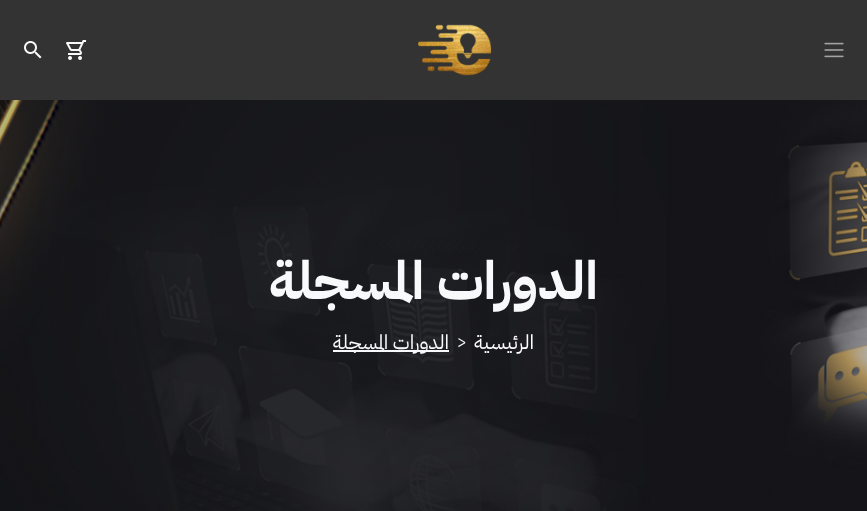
<svg xmlns="http://www.w3.org/2000/svg" width="867" height="511">
	<rect width="100%" height="100%" fill="#FFFFFF" />
	<rect x="0" y="0" width="867" height="100" fill="#333333" />
	<image x="824" y="42" width="20" height="16" href="assets/img1.png" />
	<image x="418" y="24" width="74" height="52" href="assets/img2.png" />
	<image x="66" y="40" width="21" height="20" href="assets/img3.png" />
	<image x="24" y="41" width="18" height="18" href="assets/img4.png" />
	<image x="0" y="100" width="867" height="411" href="assets/img5.png" />
	<text x="598" y="299" font-family="IBM Plex Sans Arabic" font-size="53" font-weight="700" direction="rtl" fill="#F8F9FA">الدورات المسجلة</text>
	<text x="534" y="349" font-family="IBM Plex Sans Arabic" font-size="20" direction="rtl" fill="#FFFFFF">الرئيسية</text>
	<text x="457" y="347" font-family="IBM Plex Sans Arabic" font-size="16" fill="#F8F9FA">&gt;</text>
	<rect x="333" y="350" width="116" height="2" fill="#F8F9FA" />
	<text x="449" y="349" font-family="IBM Plex Sans Arabic" font-size="20" direction="rtl" fill="#F8F9FA">الدورات المسجلة</text>
</svg>
